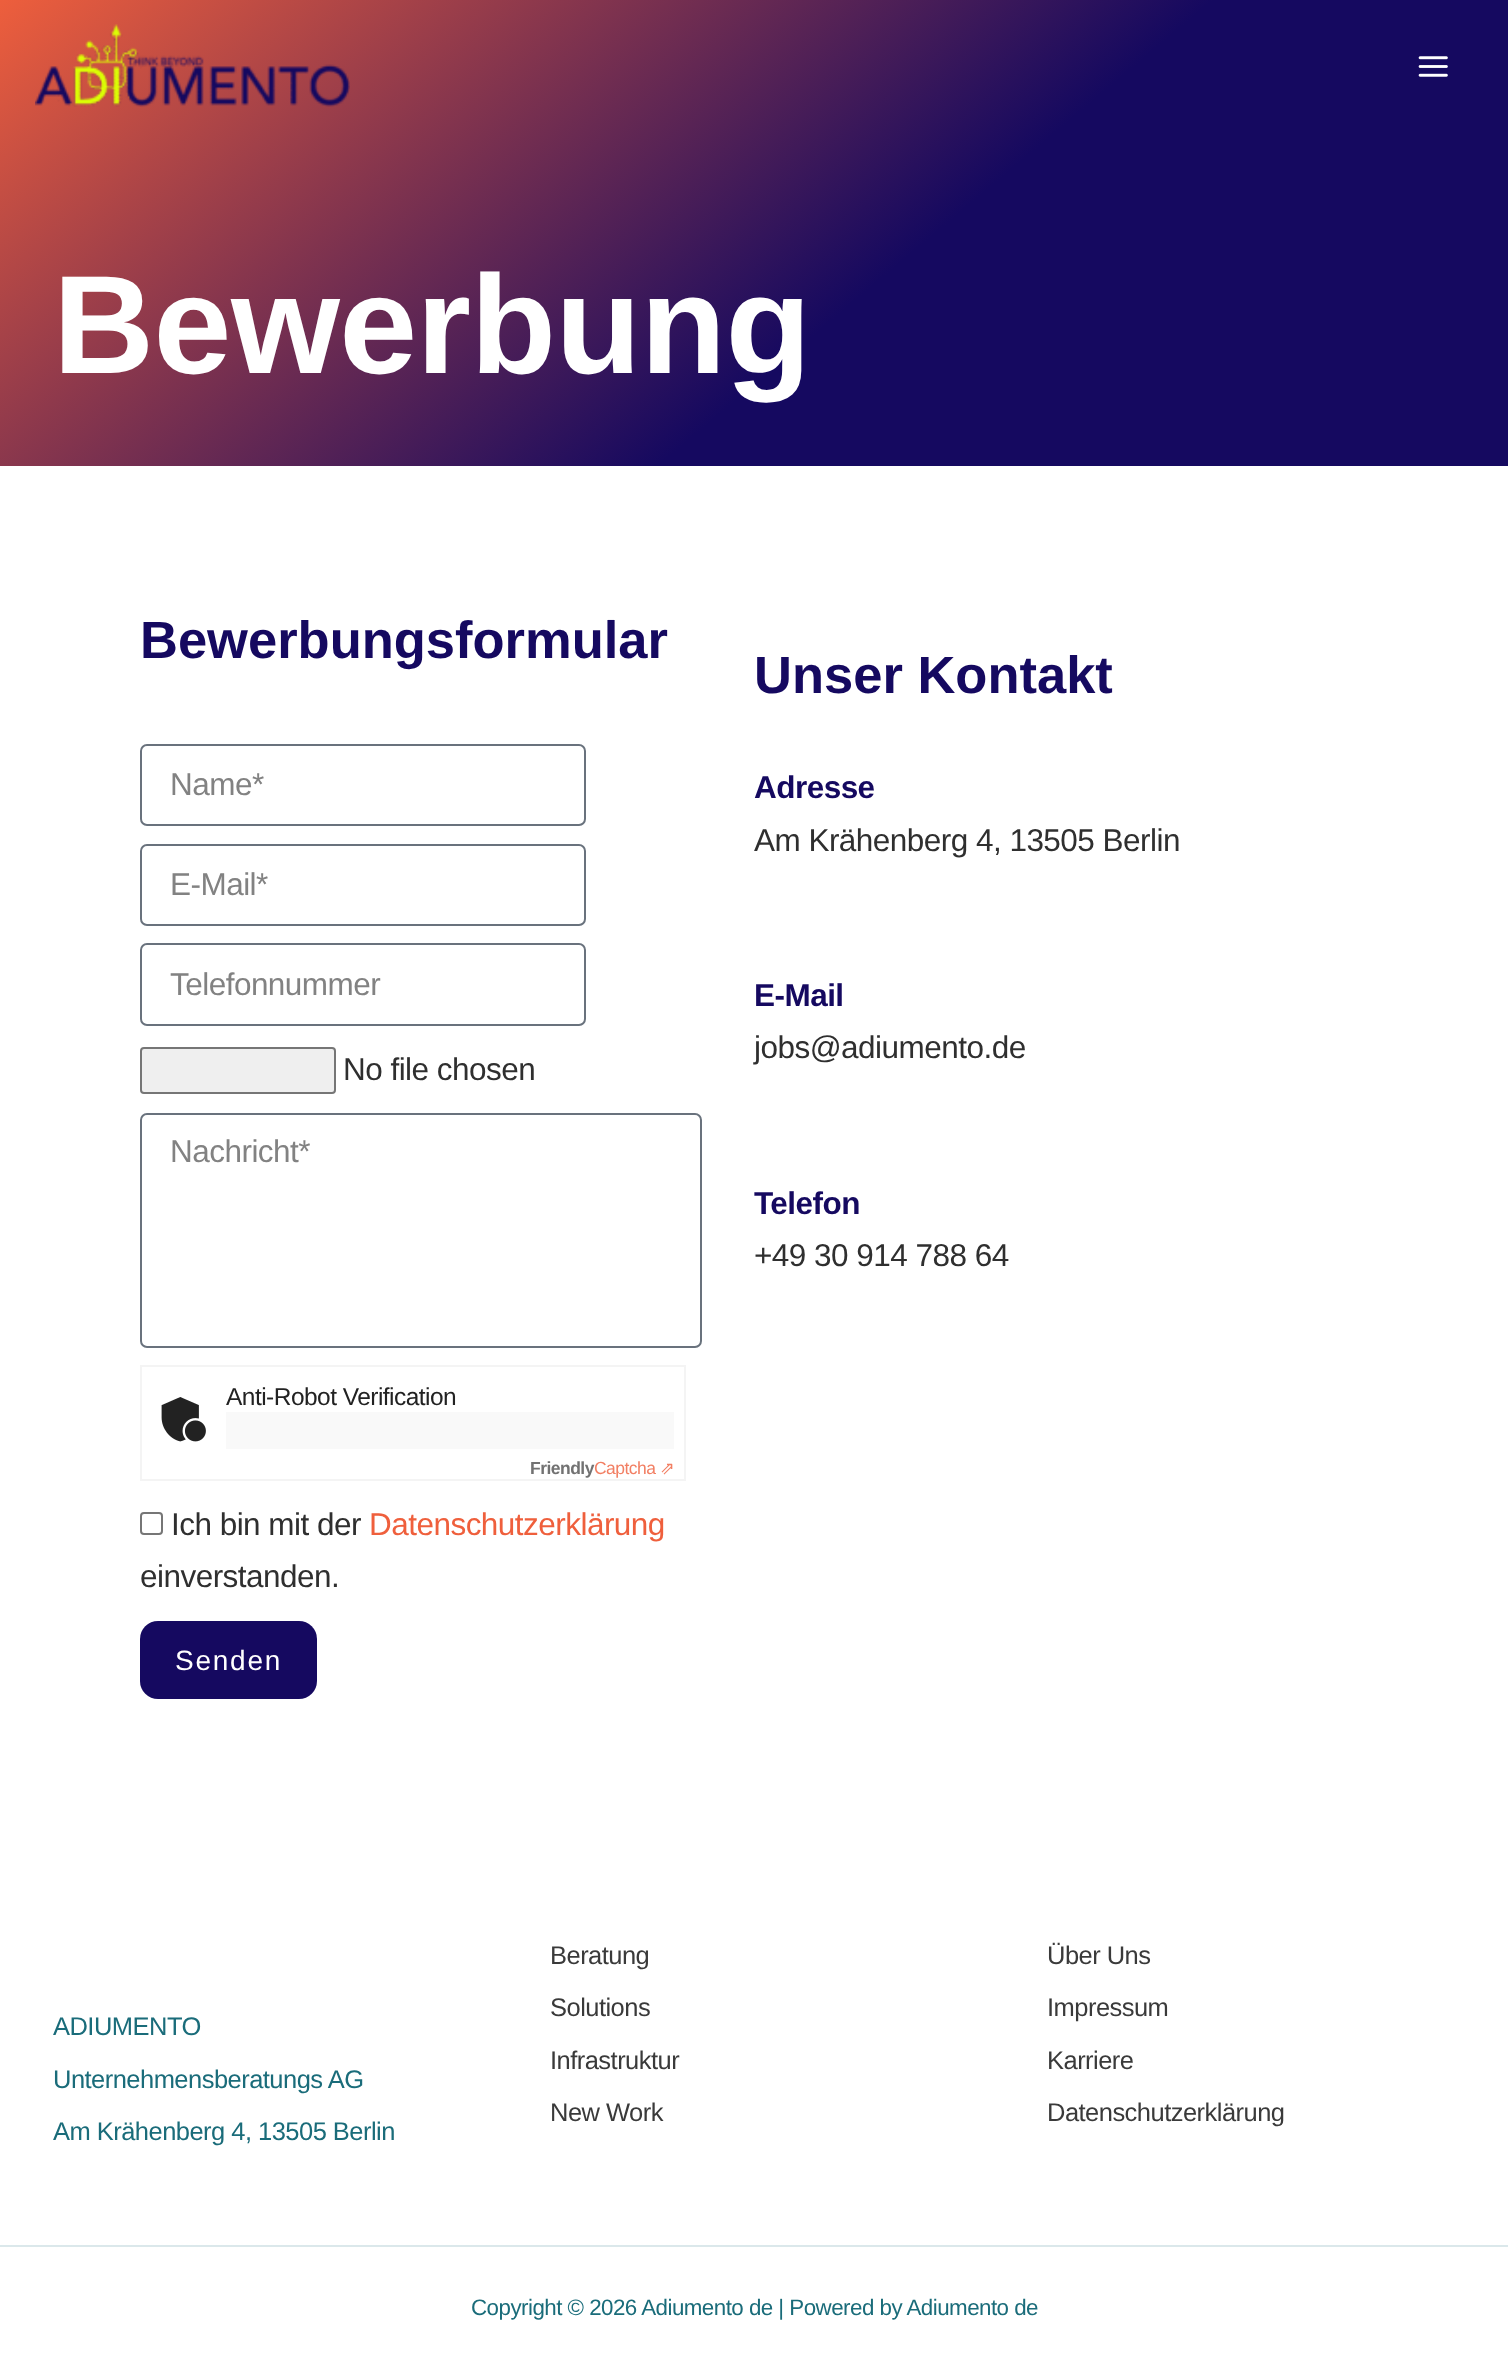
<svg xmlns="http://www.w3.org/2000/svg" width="1508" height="2375">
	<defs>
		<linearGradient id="g1" gradientUnits="userSpaceOnUse" x1="326" y1="-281" x2="1182" y2="739"><stop offset="0" stop-color="#EF5F3C" /><stop offset="0.59" stop-color="#150960" /></linearGradient>
	</defs>
	<rect width="100%" height="100%" fill="#FFFFFF" />
	<rect x="0" y="0" width="1508" height="466" fill="url(#g1)" />
	<image x="35" y="24" width="315" height="83" href="assets/img1.png" />
	<image x="1418" y="56" width="30" height="21" href="assets/img2.png" />
	<text x="53" y="373" font-family="Liberation Sans" font-size="140" font-weight="700" letter-spacing="-0.53" fill="#FFFFFF">Bewerbung</text>
	<text x="140" y="658" font-family="Liberation Sans" font-size="52.5" font-weight="700" fill="#150960">Bewerbungsformular</text>
	<rect x="141" y="745" width="444" height="80" rx="6" fill="none" stroke="#69727D" stroke-width="2" />
	<text x="170" y="795" font-family="Liberation Sans" font-size="31.5" letter-spacing="-0.53" fill="#828282">Name*</text>
	<rect x="141" y="845" width="444" height="80" rx="6" fill="none" stroke="#69727D" stroke-width="2" />
	<text x="170" y="895" font-family="Liberation Sans" font-size="31.5" letter-spacing="-0.53" fill="#828282">E-Mail*</text>
	<rect x="141" y="944" width="444" height="81" rx="6" fill="none" stroke="#69727D" stroke-width="2" />
	<text x="170" y="995" font-family="Liberation Sans" font-size="31.5" letter-spacing="-0.53" fill="#828282">Telefonnummer</text>
	<rect x="141" y="1048" width="194" height="45" rx="3" fill="#EFEFEF" stroke="#767676" stroke-width="2" />
	<text x="343" y="1080" font-family="Liberation Sans" font-size="31.5" letter-spacing="-0.53" fill="#2F2F2F">No file chosen</text>
	<rect x="141" y="1114" width="560" height="233" rx="6" fill="none" stroke="#69727D" stroke-width="2" />
	<text x="170" y="1162" font-family="Liberation Sans" font-size="31.5" letter-spacing="-0.53" fill="#828282">Nachricht*</text>
	<rect x="141" y="1366" width="544" height="114" fill="none" stroke="#F4F4F4" stroke-width="2" />
	<image x="161" y="1397" width="45" height="45" href="assets/img3.png" />
	<text x="226" y="1405" font-family="Liberation Sans" font-size="24.5" letter-spacing="-0.53" fill="#222222">Anti-Robot Verification</text>
	<rect x="226" y="1412" width="448" height="37" fill="#F9F9F9" />
	<text x="594" y="1474" font-family="Liberation Sans" font-size="17.5" letter-spacing="-0.53" fill="#F27F63">Captcha</text>
	<text x="530" y="1474" font-family="Liberation Sans" font-size="17.5" font-weight="700" letter-spacing="-0.53" fill="#727272">Friendly</text>
	<text x="660" y="1474" font-family="DejaVu Sans" font-size="17.5" letter-spacing="-0.53" fill="#F27F63">⇗</text>
	<rect x="141" y="1513" width="21" height="21" rx="3" fill="none" stroke="#767676" stroke-width="2" />
	<text x="171" y="1535" font-family="Liberation Sans" font-size="31.5" letter-spacing="-0.53" fill="#2F2F2F">Ich bin mit der</text>
	<text x="369" y="1535" font-family="Liberation Sans" font-size="31.5" letter-spacing="-0.53" fill="#EF5F3C">Datenschutzerklärung</text>
	<text x="140" y="1587" font-family="Liberation Sans" font-size="31.5" letter-spacing="-0.53" fill="#2F2F2F">einverstanden.</text>
	<rect x="140" y="1621" width="177" height="78" rx="18" fill="#150960" />
	<text x="175" y="1670" font-family="Liberation Sans" font-size="28" letter-spacing="1.75" fill="#FFFFFF">Senden</text>
	<text x="754" y="693" font-family="Liberation Sans" font-size="52.5" font-weight="700" fill="#150960">Unser Kontakt</text>
	<text x="754" y="798" font-family="Liberation Sans" font-size="31.5" font-weight="700" letter-spacing="-0.53" fill="#150960">Adresse</text>
	<text x="754" y="851" font-family="Liberation Sans" font-size="31.5" letter-spacing="-0.53" fill="#2F2F2F">Am Krähenberg 4, 13505 Berlin</text>
	<text x="754" y="1006" font-family="Liberation Sans" font-size="31.5" font-weight="700" letter-spacing="-0.53" fill="#150960">E-Mail</text>
	<text x="754" y="1058" font-family="Liberation Sans" font-size="31.5" letter-spacing="-0.53" fill="#2F2F2F">jobs@adiumento.de</text>
	<text x="754" y="1214" font-family="Liberation Sans" font-size="31.5" font-weight="700" letter-spacing="-0.53" fill="#150960">Telefon</text>
	<text x="754" y="1266" font-family="Liberation Sans" font-size="31.5" letter-spacing="-0.53" fill="#2F2F2F">+49 30 914 788 64</text>
	<g font-family="Liberation Sans" font-size="25.5" letter-spacing="-0.53" fill="#1A6C7A">
		<text x="53" y="2035">ADIUMENTO</text>
		<text x="53" y="2088">Unternehmensberatungs AG</text>
		<text x="53" y="2140">Am Krähenberg 4, 13505 Berlin</text>
	</g>
	<g font-family="Liberation Sans" font-size="25.5" letter-spacing="-0.53" fill="#3A3A3A">
		<text x="550" y="1964">Beratung</text>
		<text x="550" y="2016">Solutions</text>
		<text x="550" y="2069">Infrastruktur</text>
		<text x="550" y="2121">New Work</text>
		<text x="1047" y="1964">Über Uns</text>
		<text x="1047" y="2016">Impressum</text>
		<text x="1047" y="2069">Karriere</text>
		<text x="1047" y="2121">Datenschutzerklärung</text>
	</g>
	<rect x="0" y="2245" width="1508" height="2" fill="#DBE8EB" />
	<text x="471" y="2315" font-family="Liberation Sans" font-size="22.35" letter-spacing="-0.53" fill="#1A6C7A">Copyright © 2026 Adiumento de | Powered by Adiumento de</text>
</svg>
